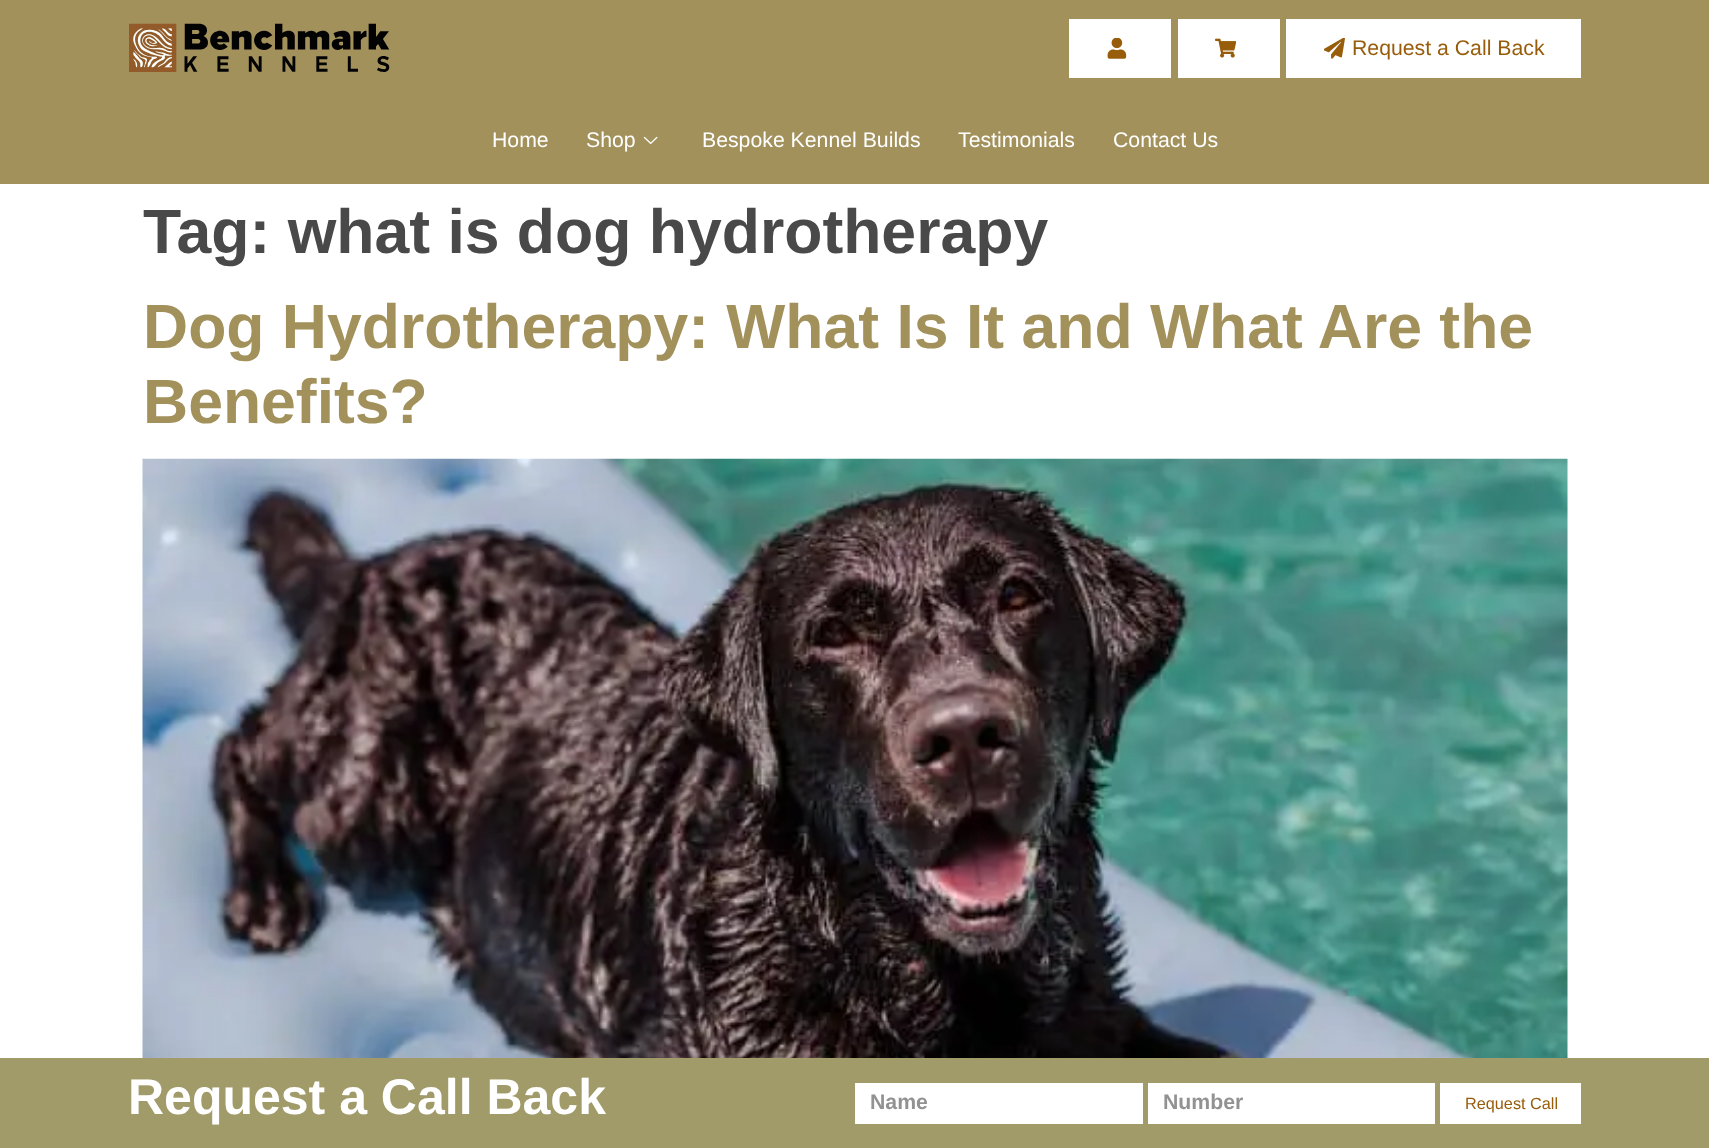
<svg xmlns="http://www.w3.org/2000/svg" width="1709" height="1148">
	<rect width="100%" height="100%" fill="#FFFFFF" />
	<rect x="0" y="0" width="1709" height="184" fill="#A3915C" />
	<image x="129" y="23" width="261" height="49" href="assets/img1.png" />
	<rect x="1069" y="19" width="102" height="59" fill="#FFFFFF" />
	<image x="1107" y="38" width="20" height="21" href="assets/img2.png" />
	<rect x="1178" y="19" width="102" height="59" fill="#FFFFFF" />
	<image x="1215" y="38" width="21" height="20" href="assets/img3.png" />
	<rect x="1286" y="19" width="295" height="59" fill="#FFFFFF" />
	<image x="1324" y="38" width="21" height="21" href="assets/img4.png" />
	<text x="1352" y="55" font-family="Liberation Sans" font-size="21.25" fill="#985D0B">Request a Call Back</text>
	<g font-family="Liberation Sans" font-size="21.25" fill="#FFFFFF">
		<text x="492" y="147">Home</text>
		<text x="586" y="147">Shop</text>
	</g>
	<image x="643" y="136" width="15" height="8" href="assets/img5.png" />
	<g font-family="Liberation Sans" font-size="21.25" fill="#FFFFFF">
		<text x="702" y="147">Bespoke Kennel Builds</text>
		<text x="958" y="147">Testimonials</text>
		<text x="1113" y="147">Contact Us</text>
	</g>
	<text x="143" y="253" font-family="Liberation Sans" font-size="62.5" font-weight="700" fill="#4A494A">Tag: what is dog hydrotherapy</text>
	<g font-family="Liberation Sans" font-size="62.5" font-weight="700" fill="#A3915C">
		<text x="143" y="348">Dog Hydrotherapy: What Is It and What Are the</text>
		<text x="143" y="423">Benefits?</text>
	</g>
	<image x="142" y="458" width="1426" height="600" href="assets/img6.png" />
	<rect x="0" y="1058" width="1709" height="90" fill="#A19B6A" />
	<text x="128" y="1114" font-family="Liberation Sans" font-size="50" font-weight="700" fill="#FFFFFF">Request a Call Back</text>
	<rect x="855" y="1083" width="288" height="41" fill="#FFFFFF" />
	<text x="870" y="1109" font-family="Liberation Sans" font-size="21.25" font-weight="700" fill="#929292">Name</text>
	<rect x="1148" y="1083" width="287" height="41" fill="#FFFFFF" />
	<text x="1163" y="1109" font-family="Liberation Sans" font-size="21.25" font-weight="700" fill="#929292">Number</text>
	<rect x="1440" y="1083" width="141" height="41" fill="#FFFFFF" />
	<text x="1465" y="1109" font-family="Liberation Sans" font-size="16.25" fill="#985D0B">Request Call</text>
</svg>
